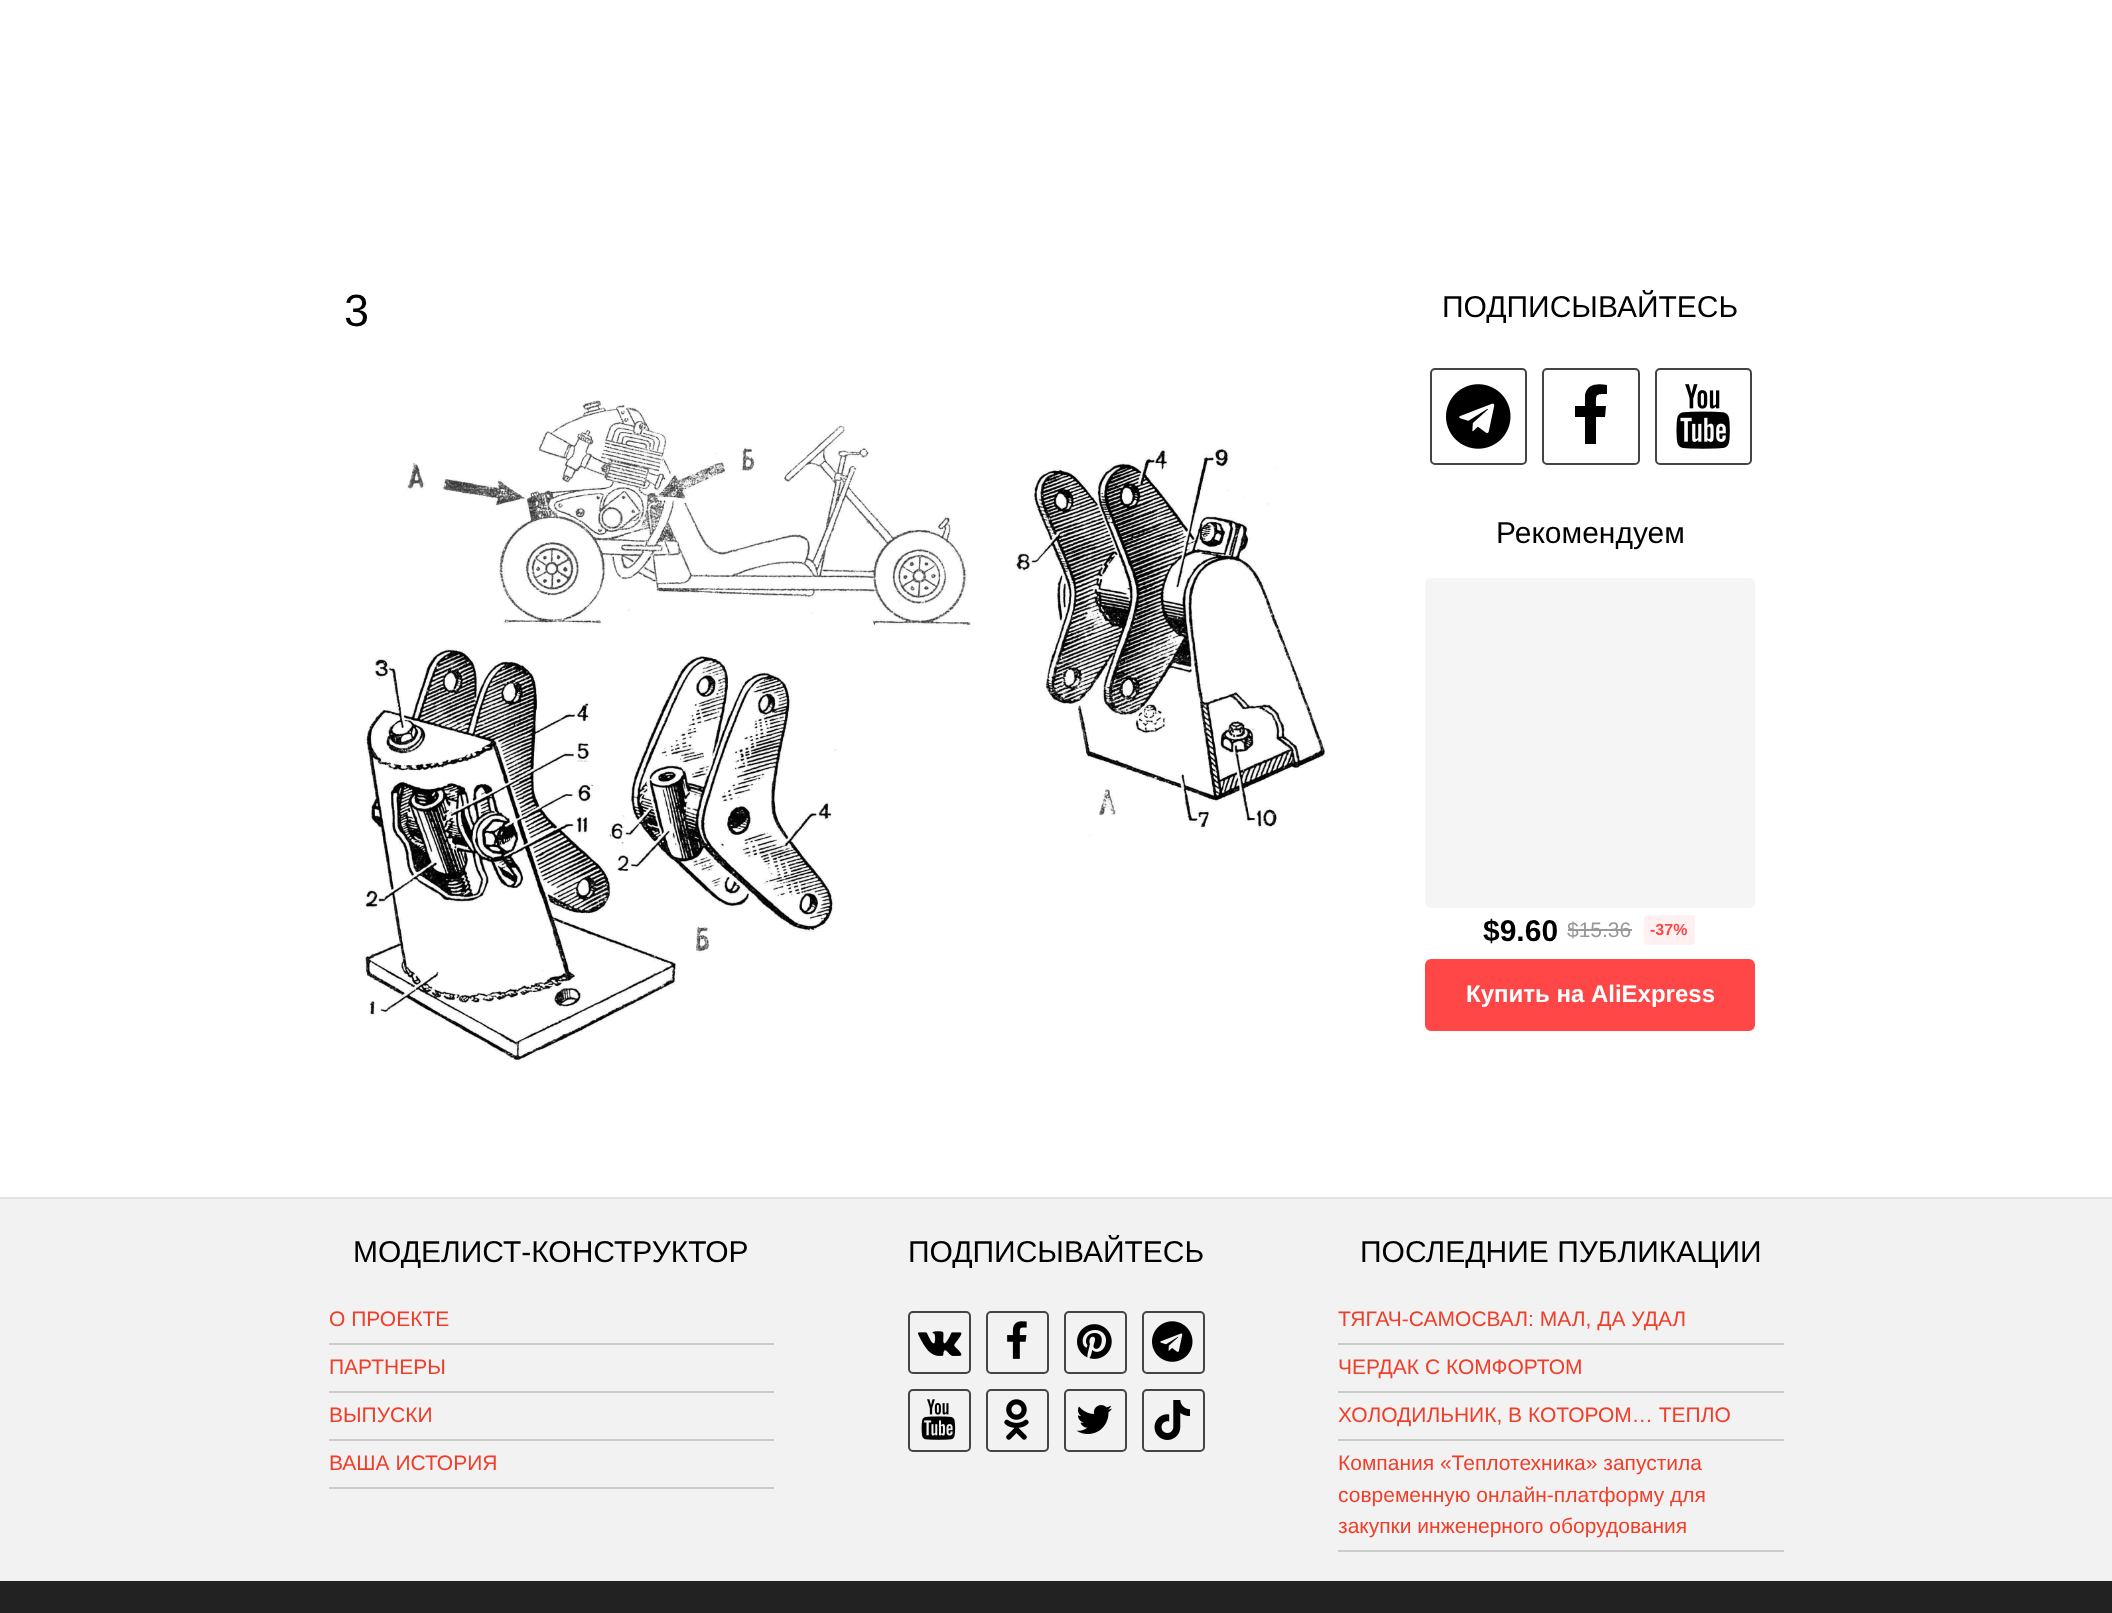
<svg xmlns="http://www.w3.org/2000/svg" width="2112" height="1613">
	<rect width="100%" height="100%" fill="#FFFFFF" />
	<text x="344" y="326" font-family="Liberation Sans" font-size="45" fill="#000000">3</text>
	<image x="364" y="400" width="961" height="662" href="assets/img1.png" />
	<text x="1442" y="317" font-family="Liberation Sans" font-size="30" fill="#000000">ПОДПИСЫВАЙТЕСЬ</text>
	<rect x="1431" y="369" width="95" height="95" rx="4" fill="none" stroke="#444444" stroke-width="2" />
	<image x="1446" y="384" width="65" height="65" href="assets/img2.png" />
	<rect x="1543" y="369" width="96" height="95" rx="4" fill="none" stroke="#444444" stroke-width="2" />
	<path d="M1607 385V394C1595 394 1596 394 1596 406H1606L1605 417H1596V444H1585V417H1575V406H1585V395C1587 384 1597 383 1607 385Z" fill="#000000" />
	<rect x="1656" y="369" width="95" height="95" rx="4" fill="none" stroke="#444444" stroke-width="2" />
	<image x="1676" y="384" width="54" height="65" href="assets/img3.png" />
	<text x="1496" y="543" font-family="Liberation Sans" font-size="30" fill="#000000">Рекомендуем</text>
	<rect x="1425" y="578" width="330" height="330" rx="6" fill="#F5F5F5" />
	<text x="1483" y="941" font-family="Liberation Sans" font-size="30" font-weight="700" fill="#000000">$9.60</text>
	<text x="1567" y="937" font-family="Liberation Sans" font-size="21" fill="#999999">$15.36</text>
	<rect x="1568" y="929" width="64" height="2" fill="#999999" />
	<rect x="1644" y="915" width="51" height="30" rx="4" fill="#FFF1F1" />
	<text x="1650" y="935" font-family="Liberation Sans" font-size="16" font-weight="700" fill="#FF4747">-37%</text>
	<rect x="1426.5" y="960.5" width="327" height="69" rx="4.5" fill="#FF4747" stroke="#FF4747" stroke-width="3" />
	<text x="1466" y="1002" font-family="Liberation Sans" font-size="24" font-weight="700" fill="#FFFFFF">Купить на AliExpress</text>
	<rect x="0" y="1199" width="2112" height="382" fill="#F2F2F2" />
	<rect x="0" y="1197" width="2112" height="2" fill="#E2E2E2" />
	<text x="353" y="1262" font-family="Liberation Sans" font-size="30" fill="#000000">МОДЕЛИСТ-КОНСТРУКТОР</text>
	<rect x="329" y="1343" width="445" height="2" fill="#CCCCCC" />
	<text x="329" y="1326" font-family="Liberation Sans" font-size="21" fill="#EF3F2A">О ПРОЕКТЕ</text>
	<rect x="329" y="1391" width="445" height="2" fill="#CCCCCC" />
	<text x="329" y="1374" font-family="Liberation Sans" font-size="21" fill="#EF3F2A">ПАРТНЕРЫ</text>
	<rect x="329" y="1439" width="445" height="2" fill="#CCCCCC" />
	<text x="329" y="1422" font-family="Liberation Sans" font-size="21" fill="#EF3F2A">ВЫПУСКИ</text>
	<rect x="329" y="1487" width="445" height="2" fill="#CCCCCC" />
	<text x="329" y="1470" font-family="Liberation Sans" font-size="21" fill="#EF3F2A">ВАША ИСТОРИЯ</text>
	<text x="908" y="1262" font-family="Liberation Sans" font-size="30" fill="#000000">ПОДПИСЫВАЙТЕСЬ</text>
	<rect x="909" y="1312" width="61" height="61" rx="4" fill="none" stroke="#444444" stroke-width="2" />
	<image x="918" y="1331" width="44" height="25" href="assets/img4.png" />
	<rect x="987" y="1312" width="61" height="61" rx="4" fill="none" stroke="#444444" stroke-width="2" />
	<image x="1007" y="1321" width="20" height="38" href="assets/img5.png" />
	<rect x="1065" y="1312" width="61" height="61" rx="4" fill="none" stroke="#444444" stroke-width="2" />
	<image x="1077" y="1324" width="35" height="35" href="assets/img6.png" />
	<rect x="1143" y="1312" width="61" height="61" rx="4" fill="none" stroke="#444444" stroke-width="2" />
	<image x="1152" y="1321" width="41" height="41" href="assets/img7.png" />
	<rect x="909" y="1390" width="61" height="61" rx="4" fill="none" stroke="#444444" stroke-width="2" />
	<image x="921" y="1399" width="35" height="41" href="assets/img8.png" />
	<rect x="987" y="1390" width="61" height="61" rx="4" fill="none" stroke="#444444" stroke-width="2" />
	<image x="1004" y="1399" width="25" height="41" href="assets/img9.png" />
	<rect x="1065" y="1390" width="61" height="61" rx="4" fill="none" stroke="#444444" stroke-width="2" />
	<image x="1076" y="1405" width="36" height="29" href="assets/img10.png" />
	<rect x="1143" y="1390" width="61" height="61" rx="4" fill="none" stroke="#444444" stroke-width="2" />
	<image x="1154" y="1400" width="36" height="40" href="assets/img11.png" />
	<text x="1360" y="1262" font-family="Liberation Sans" font-size="30" fill="#000000">ПОСЛЕДНИЕ ПУБЛИКАЦИИ</text>
	<rect x="1338" y="1343" width="446" height="2" fill="#CCCCCC" />
	<text x="1338" y="1326" font-family="Liberation Sans" font-size="21" fill="#EF3F2A">ТЯГАЧ-САМОСВАЛ: МАЛ, ДА УДАЛ</text>
	<rect x="1338" y="1391" width="446" height="2" fill="#CCCCCC" />
	<text x="1338" y="1374" font-family="Liberation Sans" font-size="21" fill="#EF3F2A">ЧЕРДАК С КОМФОРТОМ</text>
	<rect x="1338" y="1439" width="446" height="2" fill="#CCCCCC" />
	<text x="1338" y="1422" font-family="Liberation Sans" font-size="21" fill="#EF3F2A">ХОЛОДИЛЬНИК, В КОТОРОМ… ТЕПЛО</text>
	<rect x="1338" y="1550" width="446" height="2" fill="#CCCCCC" />
	<g font-family="Liberation Sans" font-size="21" fill="#EF3F2A">
		<text x="1338" y="1470">Компания «Теплотехника» запустила</text>
		<text x="1338" y="1502">современную онлайн-платформу для</text>
		<text x="1338" y="1533">закупки инженерного оборудования</text>
	</g>
	<rect x="0" y="1581" width="2112" height="32" fill="#222222" />
</svg>
